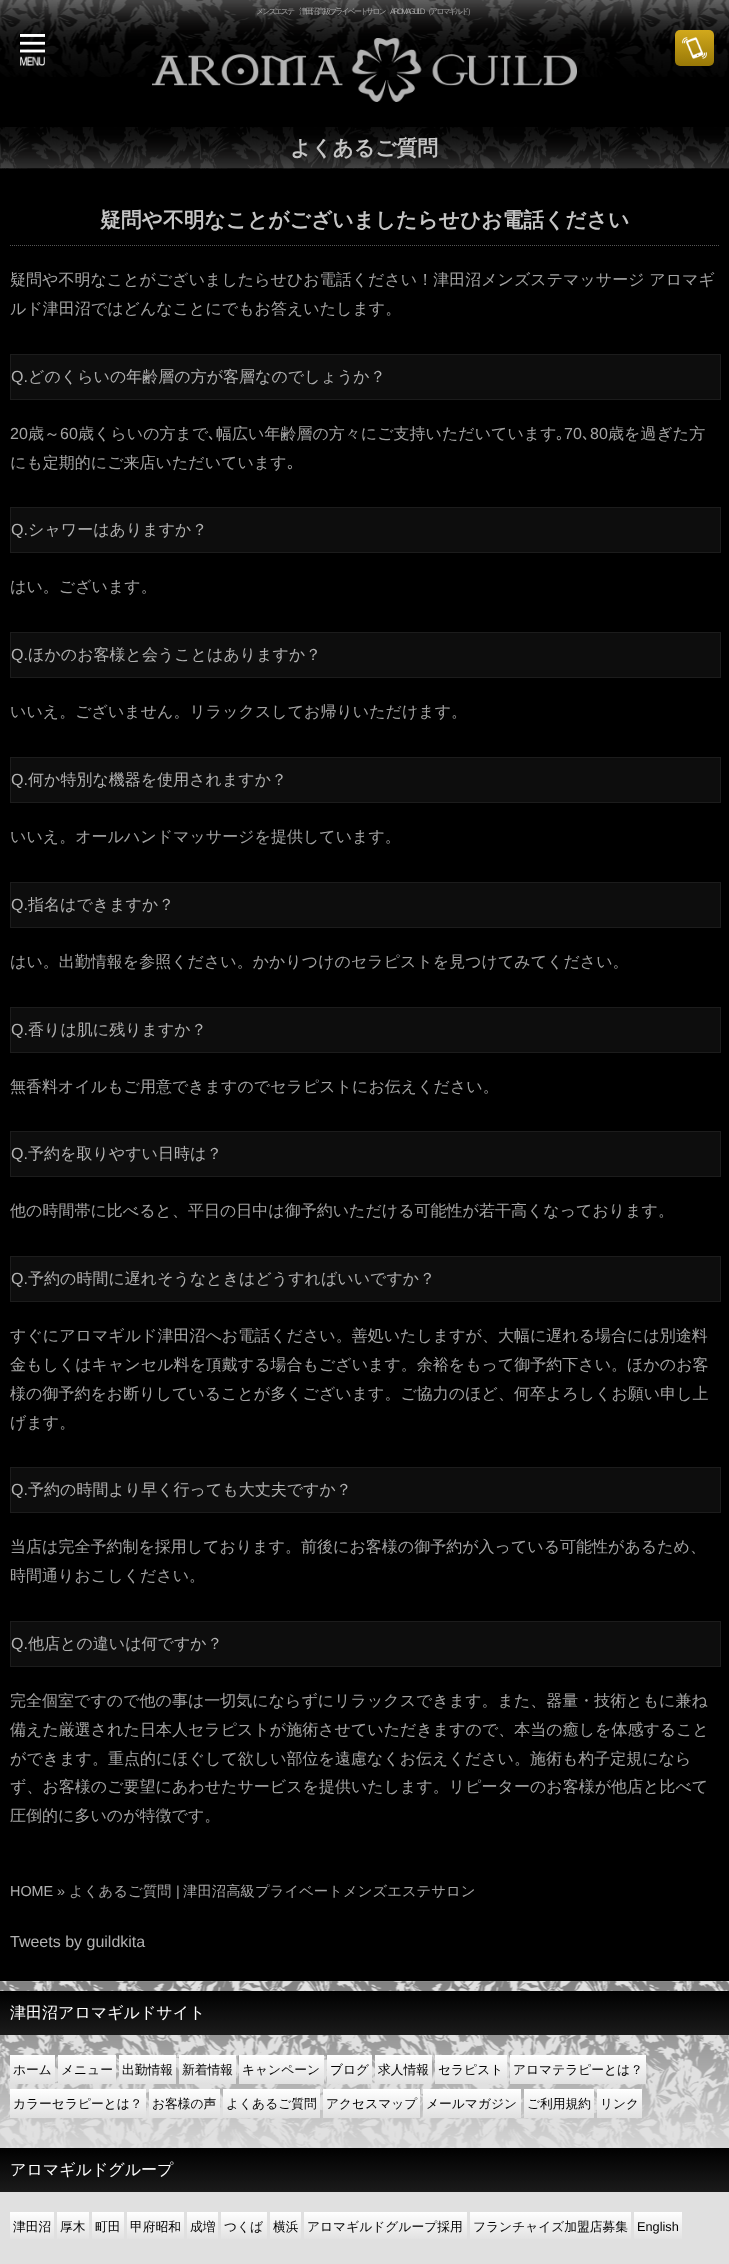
<svg xmlns="http://www.w3.org/2000/svg" width="729" height="2264">
	<defs>
		<linearGradient id="g1" gradientUnits="userSpaceOnUse" x1="675" y1="30" x2="675" y2="66"><stop offset="0" stop-color="#D2A91C" /><stop offset="1" stop-color="#987807" /></linearGradient>
		<linearGradient id="g2" gradientUnits="userSpaceOnUse" x1="365" y1="1991" x2="365" y2="2035"><stop offset="0" stop-color="#000000" /><stop offset="1" stop-color="#1B1B1B" /></linearGradient>
		<linearGradient id="g3" gradientUnits="userSpaceOnUse" x1="33" y1="2055" x2="33" y2="2084"><stop offset="0" stop-color="#FFFFFF" /><stop offset="1" stop-color="#E0E0E0" /></linearGradient>
		<linearGradient id="g4" gradientUnits="userSpaceOnUse" x1="87" y1="2055" x2="87" y2="2084"><stop offset="0" stop-color="#FFFFFF" /><stop offset="1" stop-color="#E0E0E0" /></linearGradient>
		<linearGradient id="g5" gradientUnits="userSpaceOnUse" x1="148" y1="2055" x2="148" y2="2084"><stop offset="0" stop-color="#FFFFFF" /><stop offset="1" stop-color="#E0E0E0" /></linearGradient>
		<linearGradient id="g6" gradientUnits="userSpaceOnUse" x1="208" y1="2055" x2="208" y2="2084"><stop offset="0" stop-color="#FFFFFF" /><stop offset="1" stop-color="#E0E0E0" /></linearGradient>
		<linearGradient id="g7" gradientUnits="userSpaceOnUse" x1="282" y1="2055" x2="282" y2="2084"><stop offset="0" stop-color="#FFFFFF" /><stop offset="1" stop-color="#E0E0E0" /></linearGradient>
		<linearGradient id="g8" gradientUnits="userSpaceOnUse" x1="350" y1="2055" x2="350" y2="2084"><stop offset="0" stop-color="#FFFFFF" /><stop offset="1" stop-color="#E0E0E0" /></linearGradient>
		<linearGradient id="g9" gradientUnits="userSpaceOnUse" x1="404" y1="2055" x2="404" y2="2084"><stop offset="0" stop-color="#FFFFFF" /><stop offset="1" stop-color="#E0E0E0" /></linearGradient>
		<linearGradient id="g10" gradientUnits="userSpaceOnUse" x1="471" y1="2055" x2="471" y2="2084"><stop offset="0" stop-color="#FFFFFF" /><stop offset="1" stop-color="#E0E0E0" /></linearGradient>
		<linearGradient id="g11" gradientUnits="userSpaceOnUse" x1="578" y1="2055" x2="578" y2="2084"><stop offset="0" stop-color="#FFFFFF" /><stop offset="1" stop-color="#E0E0E0" /></linearGradient>
		<linearGradient id="g12" gradientUnits="userSpaceOnUse" x1="78" y1="2089" x2="78" y2="2118"><stop offset="0" stop-color="#FFFFFF" /><stop offset="1" stop-color="#E0E0E0" /></linearGradient>
		<linearGradient id="g13" gradientUnits="userSpaceOnUse" x1="185" y1="2089" x2="185" y2="2118"><stop offset="0" stop-color="#FFFFFF" /><stop offset="1" stop-color="#E0E0E0" /></linearGradient>
		<linearGradient id="g14" gradientUnits="userSpaceOnUse" x1="272" y1="2089" x2="272" y2="2118"><stop offset="0" stop-color="#FFFFFF" /><stop offset="1" stop-color="#E0E0E0" /></linearGradient>
		<linearGradient id="g15" gradientUnits="userSpaceOnUse" x1="372" y1="2089" x2="372" y2="2118"><stop offset="0" stop-color="#FFFFFF" /><stop offset="1" stop-color="#E0E0E0" /></linearGradient>
		<linearGradient id="g16" gradientUnits="userSpaceOnUse" x1="472" y1="2089" x2="472" y2="2118"><stop offset="0" stop-color="#FFFFFF" /><stop offset="1" stop-color="#E0E0E0" /></linearGradient>
		<linearGradient id="g17" gradientUnits="userSpaceOnUse" x1="559" y1="2089" x2="559" y2="2118"><stop offset="0" stop-color="#FFFFFF" /><stop offset="1" stop-color="#E0E0E0" /></linearGradient>
		<linearGradient id="g18" gradientUnits="userSpaceOnUse" x1="620" y1="2089" x2="620" y2="2118"><stop offset="0" stop-color="#FFFFFF" /><stop offset="1" stop-color="#E0E0E0" /></linearGradient>
		<linearGradient id="g19" gradientUnits="userSpaceOnUse" x1="365" y1="2148" x2="365" y2="2192"><stop offset="0" stop-color="#000000" /><stop offset="1" stop-color="#1B1B1B" /></linearGradient>
		<linearGradient id="g20" gradientUnits="userSpaceOnUse" x1="32" y1="2212" x2="32" y2="2241"><stop offset="0" stop-color="#FFFFFF" /><stop offset="1" stop-color="#E0E0E0" /></linearGradient>
		<linearGradient id="g21" gradientUnits="userSpaceOnUse" x1="73" y1="2212" x2="73" y2="2241"><stop offset="0" stop-color="#FFFFFF" /><stop offset="1" stop-color="#E0E0E0" /></linearGradient>
		<linearGradient id="g22" gradientUnits="userSpaceOnUse" x1="108" y1="2212" x2="108" y2="2241"><stop offset="0" stop-color="#FFFFFF" /><stop offset="1" stop-color="#E0E0E0" /></linearGradient>
		<linearGradient id="g23" gradientUnits="userSpaceOnUse" x1="156" y1="2212" x2="156" y2="2241"><stop offset="0" stop-color="#FFFFFF" /><stop offset="1" stop-color="#E0E0E0" /></linearGradient>
		<linearGradient id="g24" gradientUnits="userSpaceOnUse" x1="203" y1="2212" x2="203" y2="2241"><stop offset="0" stop-color="#FFFFFF" /><stop offset="1" stop-color="#E0E0E0" /></linearGradient>
		<linearGradient id="g25" gradientUnits="userSpaceOnUse" x1="244" y1="2212" x2="244" y2="2241"><stop offset="0" stop-color="#FFFFFF" /><stop offset="1" stop-color="#E0E0E0" /></linearGradient>
		<linearGradient id="g26" gradientUnits="userSpaceOnUse" x1="286" y1="2212" x2="286" y2="2241"><stop offset="0" stop-color="#FFFFFF" /><stop offset="1" stop-color="#E0E0E0" /></linearGradient>
		<linearGradient id="g27" gradientUnits="userSpaceOnUse" x1="386" y1="2212" x2="386" y2="2241"><stop offset="0" stop-color="#FFFFFF" /><stop offset="1" stop-color="#E0E0E0" /></linearGradient>
		<linearGradient id="g28" gradientUnits="userSpaceOnUse" x1="551" y1="2212" x2="551" y2="2241"><stop offset="0" stop-color="#FFFFFF" /><stop offset="1" stop-color="#E0E0E0" /></linearGradient>
		<linearGradient id="g29" gradientUnits="userSpaceOnUse" x1="658" y1="2212" x2="658" y2="2241"><stop offset="0" stop-color="#FFFFFF" /><stop offset="1" stop-color="#E0E0E0" /></linearGradient>
	</defs>
	<rect width="100%" height="100%" fill="#000000" />
	<image x="0" y="0" width="729" height="77" href="assets/img1.png" />
	<text x="256" y="14" font-family="WenQuanYi Zen Hei" font-size="8" font-weight="500" letter-spacing="-2" fill="#A3A3A3">メンズエステ　津田沼高級プライベートサロン</text>
	<text x="390" y="14" font-family="Liberation Sans" font-size="8" letter-spacing="-2" fill="#A3A3A3">AROMA GUILD</text>
	<text x="424" y="14" font-family="WenQuanYi Zen Hei" font-size="8" font-weight="500" letter-spacing="-2" fill="#A3A3A3">（アロマギルド）</text>
	<image x="152" y="38" width="425" height="64" href="assets/img2.png" />
	<circle cx="6.5" cy="61.5" r="2.5" fill="#000000" />
	<image x="20" y="34" width="25" height="32" href="assets/img3.png" />
	<rect x="675" y="30" width="39" height="36" rx="5" fill="url(#g1)" />
	<image x="682" y="37" width="25" height="22" href="assets/img4.png" />
	<image x="0" y="127" width="729" height="42" href="assets/img5.png" />
	<text x="290" y="155" font-family="WenQuanYi Zen Hei" font-size="20.8" font-weight="700" fill="#C6C6C6">よくあるご質問</text>
	<path d="M10 245.5H719" fill="none" stroke="#565656" stroke-dasharray="1 1" />
	<text x="100" y="227" font-family="WenQuanYi Zen Hei" font-size="20.8" font-weight="700" fill="#C6C6C6">疑問や不明なことがございましたらせひお電話ください</text>
	<g font-family="WenQuanYi Zen Hei" font-size="16" font-weight="500" fill="#A3A3A3">
		<text x="10" y="285">疑問や不明なことがございましたらせひお電話ください！津田沼メンズステマッサージ アロマギ</text>
		<text x="10" y="314">ルド津田沼ではどんなことにでもお答えいたします。</text>
	</g>
	<rect x="10.5" y="354.5" width="710" height="45" fill="#0D0D0D" stroke="#1C1C1C" />
	<text x="11" y="382" font-family="Liberation Sans" font-size="16" fill="#B1B1B1">Q.</text>
	<text x="28" y="382" font-family="WenQuanYi Zen Hei" font-size="16" font-weight="500" fill="#B1B1B1">どのくらいの年齢層の方が客層なのでしょうか？</text>
	<text x="10" y="439" font-family="Liberation Sans" font-size="16" fill="#A3A3A3">20</text>
	<text x="28" y="439" font-family="WenQuanYi Zen Hei" font-size="16" font-weight="500" fill="#A3A3A3">歳～</text>
	<text x="60" y="439" font-family="Liberation Sans" font-size="16" fill="#A3A3A3">60</text>
	<text x="78" y="439" font-family="WenQuanYi Zen Hei" font-size="16" font-weight="500" fill="#A3A3A3">歳くらいの方まで</text>
	<text x="208" y="439" font-family="IPAPGothic" font-size="16" fill="#A3A3A3">､</text>
	<text x="216" y="439" font-family="WenQuanYi Zen Hei" font-size="16" font-weight="500" fill="#A3A3A3">幅広い年齢層の方々にご支持いただいています</text>
	<text x="556" y="439" font-family="IPAPGothic" font-size="16" fill="#A3A3A3">｡</text>
	<text x="564" y="439" font-family="Liberation Sans" font-size="16" fill="#A3A3A3">70</text>
	<text x="582" y="439" font-family="IPAPGothic" font-size="16" fill="#A3A3A3">､</text>
	<text x="590" y="439" font-family="Liberation Sans" font-size="16" fill="#A3A3A3">80</text>
	<g font-family="WenQuanYi Zen Hei" font-size="16" font-weight="500" fill="#A3A3A3">
		<text x="608" y="439">歳を過ぎた方</text>
		<text x="10" y="468">にも定期的にご来店いただいています</text>
	</g>
	<text x="287" y="468" font-family="IPAPGothic" font-size="16" fill="#A3A3A3">｡</text>
	<rect x="10.5" y="507.5" width="710" height="45" fill="#0D0D0D" stroke="#1C1C1C" />
	<text x="11" y="535" font-family="Liberation Sans" font-size="16" fill="#B1B1B1">Q.</text>
	<text x="28" y="535" font-family="WenQuanYi Zen Hei" font-size="16" font-weight="500" fill="#B1B1B1">シャワーはありますか？</text>
	<text x="10" y="592" font-family="WenQuanYi Zen Hei" font-size="16" font-weight="500" fill="#A3A3A3">はい。ございます。</text>
	<rect x="10.5" y="632.5" width="710" height="45" fill="#0D0D0D" stroke="#1C1C1C" />
	<text x="11" y="660" font-family="Liberation Sans" font-size="16" fill="#B1B1B1">Q.</text>
	<text x="28" y="660" font-family="WenQuanYi Zen Hei" font-size="16" font-weight="500" fill="#B1B1B1">ほかのお客様と会うことはありますか？</text>
	<text x="10" y="717" font-family="WenQuanYi Zen Hei" font-size="16" font-weight="500" fill="#A3A3A3">いいえ。ございません。リラックスしてお帰りいただけます。</text>
	<rect x="10.5" y="757.5" width="710" height="45" fill="#0D0D0D" stroke="#1C1C1C" />
	<text x="11" y="785" font-family="Liberation Sans" font-size="16" fill="#B1B1B1">Q.</text>
	<text x="28" y="785" font-family="WenQuanYi Zen Hei" font-size="16" font-weight="500" fill="#B1B1B1">何か特別な機器を使用されますか？</text>
	<text x="10" y="842" font-family="WenQuanYi Zen Hei" font-size="16" font-weight="500" fill="#A3A3A3">いいえ。オールハンドマッサージを提供しています。</text>
	<rect x="10.5" y="882.5" width="710" height="45" fill="#0D0D0D" stroke="#1C1C1C" />
	<text x="11" y="910" font-family="Liberation Sans" font-size="16" fill="#B1B1B1">Q.</text>
	<text x="28" y="910" font-family="WenQuanYi Zen Hei" font-size="16" font-weight="500" fill="#B1B1B1">指名はできますか？</text>
	<text x="10" y="967" font-family="WenQuanYi Zen Hei" font-size="16" font-weight="500" fill="#A3A3A3">はい。出勤情報を参照ください。かかりつけのセラピストを見つけてみてください。</text>
	<rect x="10.5" y="1007.5" width="710" height="45" fill="#0D0D0D" stroke="#1C1C1C" />
	<text x="11" y="1035" font-family="Liberation Sans" font-size="16" fill="#B1B1B1">Q.</text>
	<text x="28" y="1035" font-family="WenQuanYi Zen Hei" font-size="16" font-weight="500" fill="#B1B1B1">香りは肌に残りますか？</text>
	<text x="10" y="1092" font-family="WenQuanYi Zen Hei" font-size="16" font-weight="500" fill="#A3A3A3">無香料オイルもご用意できますのでセラピストにお伝えください。</text>
	<rect x="10.5" y="1131.5" width="710" height="45" fill="#0D0D0D" stroke="#1C1C1C" />
	<text x="11" y="1159" font-family="Liberation Sans" font-size="16" fill="#B1B1B1">Q.</text>
	<text x="28" y="1159" font-family="WenQuanYi Zen Hei" font-size="16" font-weight="500" fill="#B1B1B1">予約を取りやすい日時は？</text>
	<text x="10" y="1216" font-family="WenQuanYi Zen Hei" font-size="16" font-weight="500" fill="#A3A3A3">他の時間帯に比べると、平日の日中は御予約いただける可能性が若干高くなっております。</text>
	<rect x="10.5" y="1256.5" width="710" height="45" fill="#0D0D0D" stroke="#1C1C1C" />
	<text x="11" y="1284" font-family="Liberation Sans" font-size="16" fill="#B1B1B1">Q.</text>
	<text x="28" y="1284" font-family="WenQuanYi Zen Hei" font-size="16" font-weight="500" fill="#B1B1B1">予約の時間に遅れそうなときはどうすればいいですか？</text>
	<g font-family="WenQuanYi Zen Hei" font-size="16" font-weight="500" fill="#A3A3A3">
		<text x="10" y="1341">すぐにアロマギルド津田沼へお電話ください。善処いたしますが、大幅に遅れる場合には別途料</text>
		<text x="10" y="1370">金もしくはキャンセル料を頂戴する場合もございます。余裕をもって御予約下さい。ほかのお客</text>
		<text x="10" y="1399">様の御予約をお断りしていることが多くございます。ご協力のほど、何卒よろしくお願い申し上</text>
		<text x="10" y="1428">げます。</text>
	</g>
	<rect x="10.5" y="1467.5" width="710" height="45" fill="#0D0D0D" stroke="#1C1C1C" />
	<text x="11" y="1495" font-family="Liberation Sans" font-size="16" fill="#B1B1B1">Q.</text>
	<text x="28" y="1495" font-family="WenQuanYi Zen Hei" font-size="16" font-weight="500" fill="#B1B1B1">予約の時間より早く行っても大丈夫ですか？</text>
	<g font-family="WenQuanYi Zen Hei" font-size="16" font-weight="500" fill="#A3A3A3">
		<text x="10" y="1552">当店は完全予約制を採用しております。前後にお客様の御予約が入っている可能性があるため、</text>
		<text x="10" y="1581">時間通りおこしください。</text>
	</g>
	<rect x="10.5" y="1621.5" width="710" height="45" fill="#0D0D0D" stroke="#1C1C1C" />
	<text x="11" y="1649" font-family="Liberation Sans" font-size="16" fill="#B1B1B1">Q.</text>
	<text x="28" y="1649" font-family="WenQuanYi Zen Hei" font-size="16" font-weight="500" fill="#B1B1B1">他店との違いは何ですか？</text>
	<g font-family="WenQuanYi Zen Hei" font-size="16" font-weight="500" fill="#A3A3A3">
		<text x="10" y="1706">完全個室ですので他の事は一切気にならずにリラックスできます。また、器量・技術ともに兼ね</text>
		<text x="10" y="1735">備えた厳選された日本人セラピストが施術させていただきますので、本当の癒しを体感すること</text>
		<text x="10" y="1764">ができます。重点的にほぐして欲しい部位を遠慮なくお伝えください。施術も杓子定規になら</text>
		<text x="10" y="1792">ず、お客様のご要望にあわせたサービスを提供いたします。リピーターのお客様が他店と比べて</text>
		<text x="10" y="1821">圧倒的に多いのが特徴です。</text>
	</g>
	<text x="10" y="1896" font-family="Liberation Sans" font-size="14.4" fill="#B1B1B1">HOME</text>
	<text x="57" y="1896" font-family="Liberation Sans" font-size="14.4" fill="#A3A3A3">»</text>
	<text x="69" y="1896" font-family="WenQuanYi Zen Hei" font-size="14.4" font-weight="500" fill="#A3A3A3">よくあるご質問</text>
	<text x="176" y="1896" font-family="Liberation Sans" font-size="14.4" fill="#A3A3A3">|</text>
	<text x="183" y="1896" font-family="WenQuanYi Zen Hei" font-size="14.4" font-weight="500" fill="#A3A3A3">津田沼高級プライベートメンズエステサロン</text>
	<text x="10" y="1947" font-family="Liberation Sans" font-size="16" fill="#B1B1B1">Tweets by guildkita</text>
	<rect x="0" y="1981" width="729" height="283" fill="#E0E0E0" />
	<image x="0" y="1981" width="729" height="167" href="assets/img6.png" />
	<rect x="0" y="1991" width="729" height="44" fill="url(#g2)" />
	<text x="10" y="2018" font-family="WenQuanYi Zen Hei" font-size="16" font-weight="500" fill="#FFFFFF">津田沼アロマギルドサイト</text>
	<rect x="10" y="2055" width="45" height="29" fill="url(#g3)" />
	<text x="13" y="2074" font-family="WenQuanYi Zen Hei" font-size="12.75" font-weight="500" fill="#000000">ホーム</text>
	<rect x="58" y="2055" width="58" height="29" fill="url(#g4)" />
	<text x="61" y="2074" font-family="WenQuanYi Zen Hei" font-size="12.75" font-weight="500" fill="#000000">メニュー</text>
	<rect x="119" y="2055" width="57" height="29" fill="url(#g5)" />
	<text x="122" y="2074" font-family="WenQuanYi Zen Hei" font-size="12.75" font-weight="500" fill="#000000">出勤情報</text>
	<rect x="179" y="2055" width="57" height="29" fill="url(#g6)" />
	<text x="182" y="2074" font-family="WenQuanYi Zen Hei" font-size="12.75" font-weight="500" fill="#000000">新着情報</text>
	<rect x="239" y="2055" width="85" height="29" fill="url(#g7)" />
	<text x="242" y="2074" font-family="WenQuanYi Zen Hei" font-size="12.75" font-weight="500" fill="#000000">キャンペーン</text>
	<rect x="327" y="2055" width="45" height="29" fill="url(#g8)" />
	<text x="330" y="2074" font-family="WenQuanYi Zen Hei" font-size="12.75" font-weight="500" fill="#000000">ブログ</text>
	<rect x="375" y="2055" width="57" height="29" fill="url(#g9)" />
	<text x="378" y="2074" font-family="WenQuanYi Zen Hei" font-size="12.75" font-weight="500" fill="#000000">求人情報</text>
	<rect x="435" y="2055" width="72" height="29" fill="url(#g10)" />
	<text x="438" y="2074" font-family="WenQuanYi Zen Hei" font-size="12.75" font-weight="500" fill="#000000">セラピスト</text>
	<rect x="510" y="2055" width="136" height="29" fill="url(#g11)" />
	<text x="513" y="2074" font-family="WenQuanYi Zen Hei" font-size="12.75" font-weight="500" fill="#000000">アロマテラピーとは？</text>
	<rect x="10" y="2089" width="136" height="29" fill="url(#g12)" />
	<text x="13" y="2108" font-family="WenQuanYi Zen Hei" font-size="12.75" font-weight="500" fill="#000000">カラーセラピーとは？</text>
	<rect x="149" y="2089" width="71" height="29" fill="url(#g13)" />
	<text x="152" y="2108" font-family="WenQuanYi Zen Hei" font-size="12.75" font-weight="500" fill="#000000">お客様の声</text>
	<rect x="223" y="2089" width="97" height="29" fill="url(#g14)" />
	<text x="226" y="2108" font-family="WenQuanYi Zen Hei" font-size="12.75" font-weight="500" fill="#000000">よくあるご質問</text>
	<rect x="323" y="2089" width="97" height="29" fill="url(#g15)" />
	<text x="326" y="2108" font-family="WenQuanYi Zen Hei" font-size="12.75" font-weight="500" fill="#000000">アクセスマップ</text>
	<rect x="423" y="2089" width="98" height="29" fill="url(#g16)" />
	<text x="426" y="2108" font-family="WenQuanYi Zen Hei" font-size="12.75" font-weight="500" fill="#000000">メールマガジン</text>
	<rect x="524" y="2089" width="70" height="29" fill="url(#g17)" />
	<text x="527" y="2108" font-family="WenQuanYi Zen Hei" font-size="12.75" font-weight="500" fill="#000000">ご利用規約</text>
	<rect x="597" y="2089" width="45" height="29" fill="url(#g18)" />
	<text x="600" y="2108" font-family="WenQuanYi Zen Hei" font-size="12.75" font-weight="500" fill="#000000">リンク</text>
	<rect x="0" y="2148" width="729" height="44" fill="url(#g19)" />
	<text x="10" y="2175" font-family="WenQuanYi Zen Hei" font-size="16" font-weight="500" fill="#FFFFFF">アロマギルドグループ</text>
	<rect x="10" y="2212" width="44" height="27" fill="url(#g20)" />
	<text x="13" y="2231" font-family="WenQuanYi Zen Hei" font-size="12.75" font-weight="500" fill="#000000">津田沼</text>
	<rect x="57" y="2212" width="32" height="27" fill="url(#g21)" />
	<text x="60" y="2231" font-family="WenQuanYi Zen Hei" font-size="12.75" font-weight="500" fill="#000000">厚木</text>
	<rect x="92" y="2212" width="32" height="27" fill="url(#g22)" />
	<text x="95" y="2231" font-family="WenQuanYi Zen Hei" font-size="12.75" font-weight="500" fill="#000000">町田</text>
	<rect x="127" y="2212" width="57" height="27" fill="url(#g23)" />
	<text x="130" y="2231" font-family="WenQuanYi Zen Hei" font-size="12.75" font-weight="500" fill="#000000">甲府昭和</text>
	<rect x="187" y="2212" width="31" height="27" fill="url(#g24)" />
	<text x="190" y="2231" font-family="WenQuanYi Zen Hei" font-size="12.75" font-weight="500" fill="#000000">成増</text>
	<rect x="221" y="2212" width="46" height="27" fill="url(#g25)" />
	<text x="224" y="2231" font-family="WenQuanYi Zen Hei" font-size="12.75" font-weight="500" fill="#000000">つくば</text>
	<rect x="270" y="2212" width="31" height="27" fill="url(#g26)" />
	<text x="273" y="2231" font-family="WenQuanYi Zen Hei" font-size="12.75" font-weight="500" fill="#000000">横浜</text>
	<rect x="304" y="2212" width="163" height="27" fill="url(#g27)" />
	<text x="307" y="2231" font-family="WenQuanYi Zen Hei" font-size="12.75" font-weight="500" fill="#000000">アロマギルドグループ採用</text>
	<rect x="470" y="2212" width="161" height="27" fill="url(#g28)" />
	<text x="473" y="2231" font-family="WenQuanYi Zen Hei" font-size="12.75" font-weight="500" fill="#000000">フランチャイズ加盟店募集</text>
	<rect x="634" y="2212" width="48" height="27" fill="url(#g29)" />
	<text x="637" y="2231" font-family="Liberation Sans" font-size="12.75" fill="#000000">English</text>
</svg>
